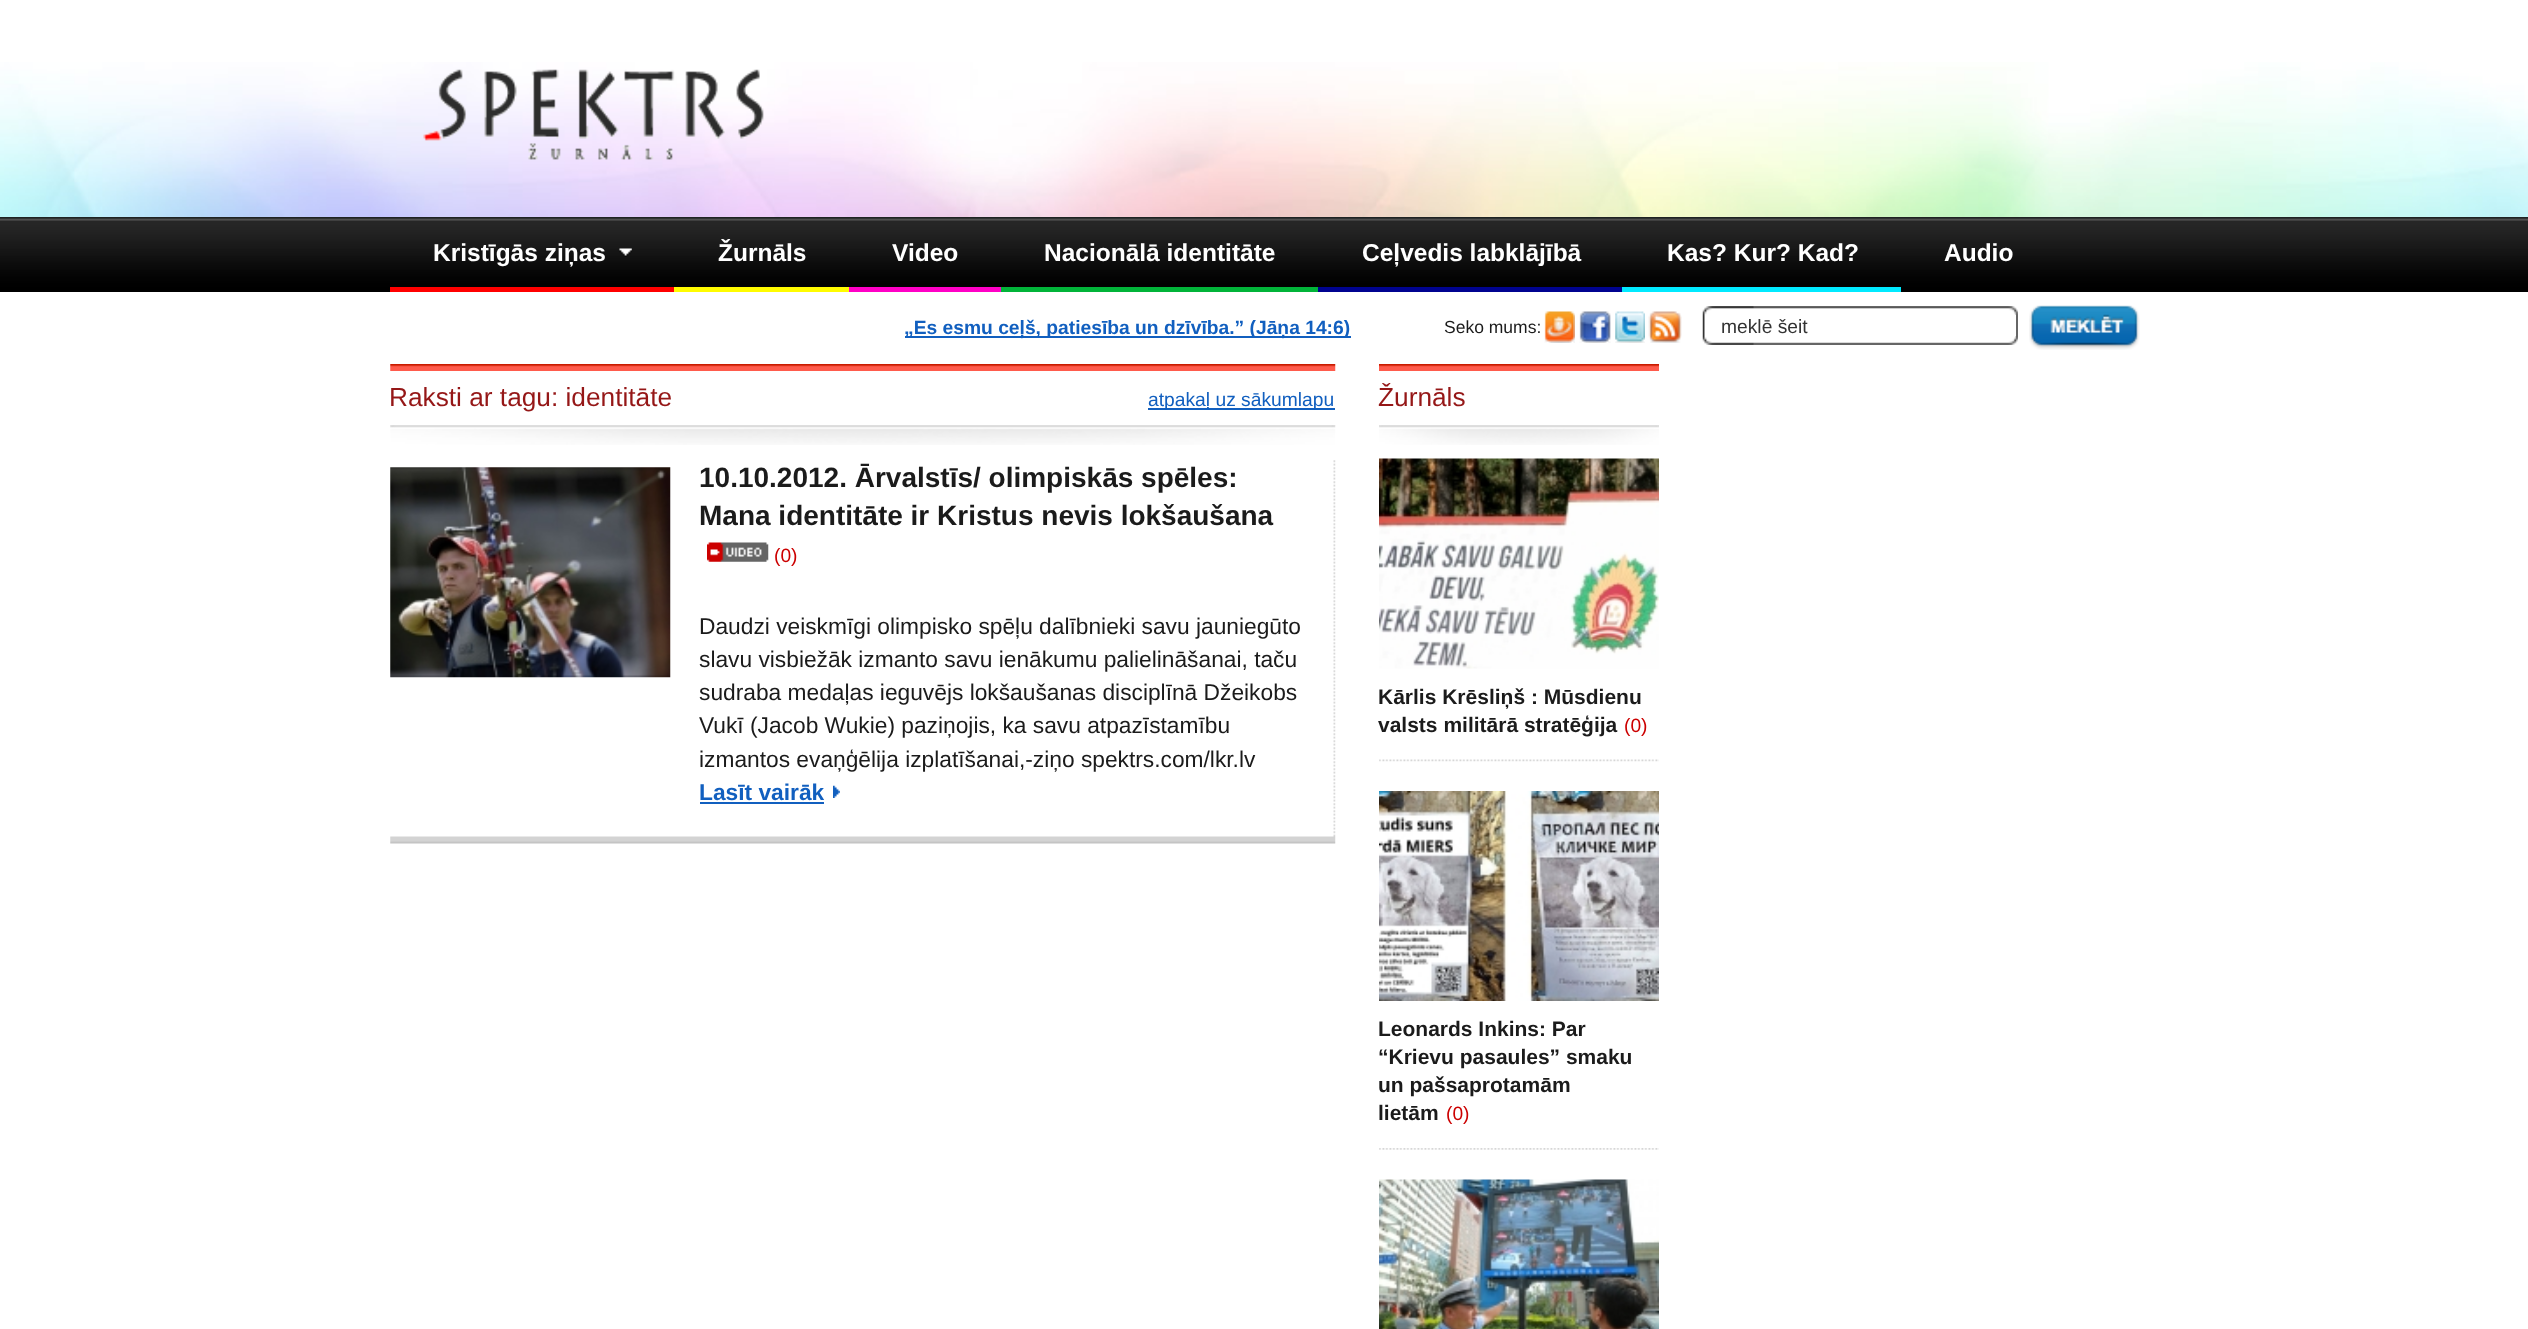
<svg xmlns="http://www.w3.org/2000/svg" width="2528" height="1329">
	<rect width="100%" height="100%" fill="#FFFFFF" />
	<image x="0" y="62" width="2528" height="155" href="assets/img1.png" />
	<image x="423" y="69" width="341" height="91" href="assets/img2.png" />
	<image x="0" y="217" width="2528" height="70" href="assets/img3.png" />
	<rect x="0" y="287" width="2528" height="5" fill="#000000" />
	<rect x="390" y="287" width="284" height="5" fill="#FF0000" />
	<image x="619" y="248" width="13" height="9" href="assets/img4.png" />
	<text x="433" y="261" font-family="Liberation Sans" font-size="24.5" font-weight="700" fill="#FFFFFF">Kristīgās ziņas</text>
	<rect x="674" y="287" width="175" height="5" fill="#FFFC00" />
	<text x="718" y="261" font-family="Liberation Sans" font-size="24.5" font-weight="700" fill="#FFFFFF">Žurnāls</text>
	<rect x="849" y="287" width="152" height="5" fill="#FF00C6" />
	<text x="892" y="261" font-family="Liberation Sans" font-size="24.5" font-weight="700" fill="#FFFFFF">Video</text>
	<rect x="1001" y="287" width="317" height="5" fill="#01B439" />
	<text x="1044" y="261" font-family="Liberation Sans" font-size="24.5" font-weight="700" fill="#FFFFFF">Nacionālā identitāte</text>
	<rect x="1318" y="287" width="304" height="5" fill="#000390" />
	<text x="1362" y="261" font-family="Liberation Sans" font-size="24.5" font-weight="700" fill="#FFFFFF">Ceļvedis labklājībā</text>
	<rect x="1622" y="287" width="279" height="5" fill="#00EAFF" />
	<g font-family="Liberation Sans" font-size="24.5" font-weight="700" fill="#FFFFFF">
		<text x="1667" y="261">Kas? Kur? Kad?</text>
		<text x="1944" y="261">Audio</text>
	</g>
	<rect x="905" y="336" width="446" height="2" fill="#115FBF" />
	<text x="904" y="334" font-family="Liberation Sans" font-size="19.25" font-weight="700" fill="#115FBF">„Es esmu ceļš, patiesība un dzīvība.” (Jāņa 14:6)</text>
	<text x="1444" y="333" font-family="Liberation Sans" font-size="17.5" fill="#1B1B1B">Seko mums:</text>
	<image x="1544" y="311" width="31" height="32" href="assets/img5.png" />
	<image x="1579" y="311" width="32" height="32" href="assets/img6.png" />
	<image x="1615" y="311" width="30" height="32" href="assets/img7.png" />
	<image x="1648" y="311" width="34" height="32" href="assets/img8.png" />
	<image x="1702" y="306" width="316" height="39" href="assets/img9.png" />
	<rect x="2015" y="315" width="1" height="21" fill="#FFFFFF" />
	<text x="1721" y="333" font-family="Liberation Sans" font-size="19.25" fill="#333333">meklē šeit</text>
	<image x="2029" y="305" width="111" height="45" href="assets/img10.png" />
	<image x="390" y="364" width="946" height="7" href="assets/img11.png" />
	<image x="390" y="425" width="946" height="20" href="assets/img12.png" />
	<text x="389" y="406" font-family="Liberation Sans" font-size="26.25" fill="#951717">Raksti ar tagu: identitāte</text>
	<rect x="1148" y="408" width="187" height="2" fill="#115FBF" />
	<text x="1148" y="406" font-family="Liberation Sans" font-size="19.25" fill="#115FBF">atpakaļ uz sākumlapu</text>
	<image x="390" y="460" width="946" height="384" href="assets/img13.png" />
	<image x="390" y="467" width="281" height="211" href="assets/img14.png" />
	<g font-family="Liberation Sans" font-size="28" font-weight="700" fill="#1B1B1B">
		<text x="699" y="487">10.10.2012. Ārvalstīs/ olimpiskās spēles:</text>
		<text x="699" y="525">Mana identitāte ir Kristus nevis lokšaušana</text>
	</g>
	<image x="707" y="542" width="62" height="20" href="assets/img15.png" />
	<text x="774" y="562" font-family="Liberation Sans" font-size="19.25" fill="#CC0000">(0)</text>
	<g font-family="Liberation Sans" font-size="22.75" fill="#1B1B1B">
		<text x="699" y="634">Daudzi veiskmīgi olimpisko spēļu dalībnieki savu jauniegūto</text>
		<text x="699" y="667">slavu visbiežāk izmanto savu ienākumu palielināšanai, taču</text>
		<text x="699" y="700">sudraba medaļas ieguvējs lokšaušanas disciplīnā Džeikobs</text>
		<text x="699" y="733">Vukī (Jacob Wukie) paziņojis, ka savu atpazīstamību</text>
		<text x="699" y="767">izmantos evaņģēlija izplatīšanai,-ziņo spektrs.com/lkr.lv</text>
	</g>
	<text x="699" y="800" font-family="Liberation Sans" font-size="22.75" font-weight="700" fill="#115FBF">Lasīt vairāk</text>
	<rect x="700" y="802" width="124" height="2" fill="#115FBF" />
	<image x="833" y="785" width="7" height="13" href="assets/img16.png" />
	<image x="1379" y="364" width="280" height="7" href="assets/img17.png" />
	<image x="1379" y="425" width="280" height="20" href="assets/img18.png" />
	<text x="1378" y="406" font-family="Liberation Sans" font-size="26.25" fill="#951717">Žurnāls</text>
	<image x="1379" y="458" width="280" height="211" href="assets/img19.png" />
	<g font-family="Liberation Sans" font-size="21" font-weight="700" fill="#1B1B1B">
		<text x="1378" y="704">Kārlis Krēsliņš : Mūsdienu</text>
		<text x="1378" y="732">valsts militārā stratēģija</text>
	</g>
	<text x="1624" y="732" font-family="Liberation Sans" font-size="19.25" fill="#CC0000">(0)</text>
	<image x="1379" y="759" width="280" height="3" href="assets/img20.png" />
	<image x="1379" y="791" width="280" height="210" href="assets/img21.png" />
	<g font-family="Liberation Sans" font-size="21" font-weight="700" fill="#1B1B1B">
		<text x="1378" y="1036">Leonards Inkins: Par</text>
		<text x="1378" y="1064">“Krievu pasaules” smaku</text>
		<text x="1378" y="1092">un pašsaprotamām</text>
		<text x="1378" y="1120">lietām</text>
	</g>
	<text x="1446" y="1120" font-family="Liberation Sans" font-size="19.25" fill="#CC0000">(0)</text>
	<image x="1379" y="1148" width="280" height="2" href="assets/img22.png" />
	<image x="1379" y="1179" width="280" height="150" href="assets/img23.png" />
</svg>
